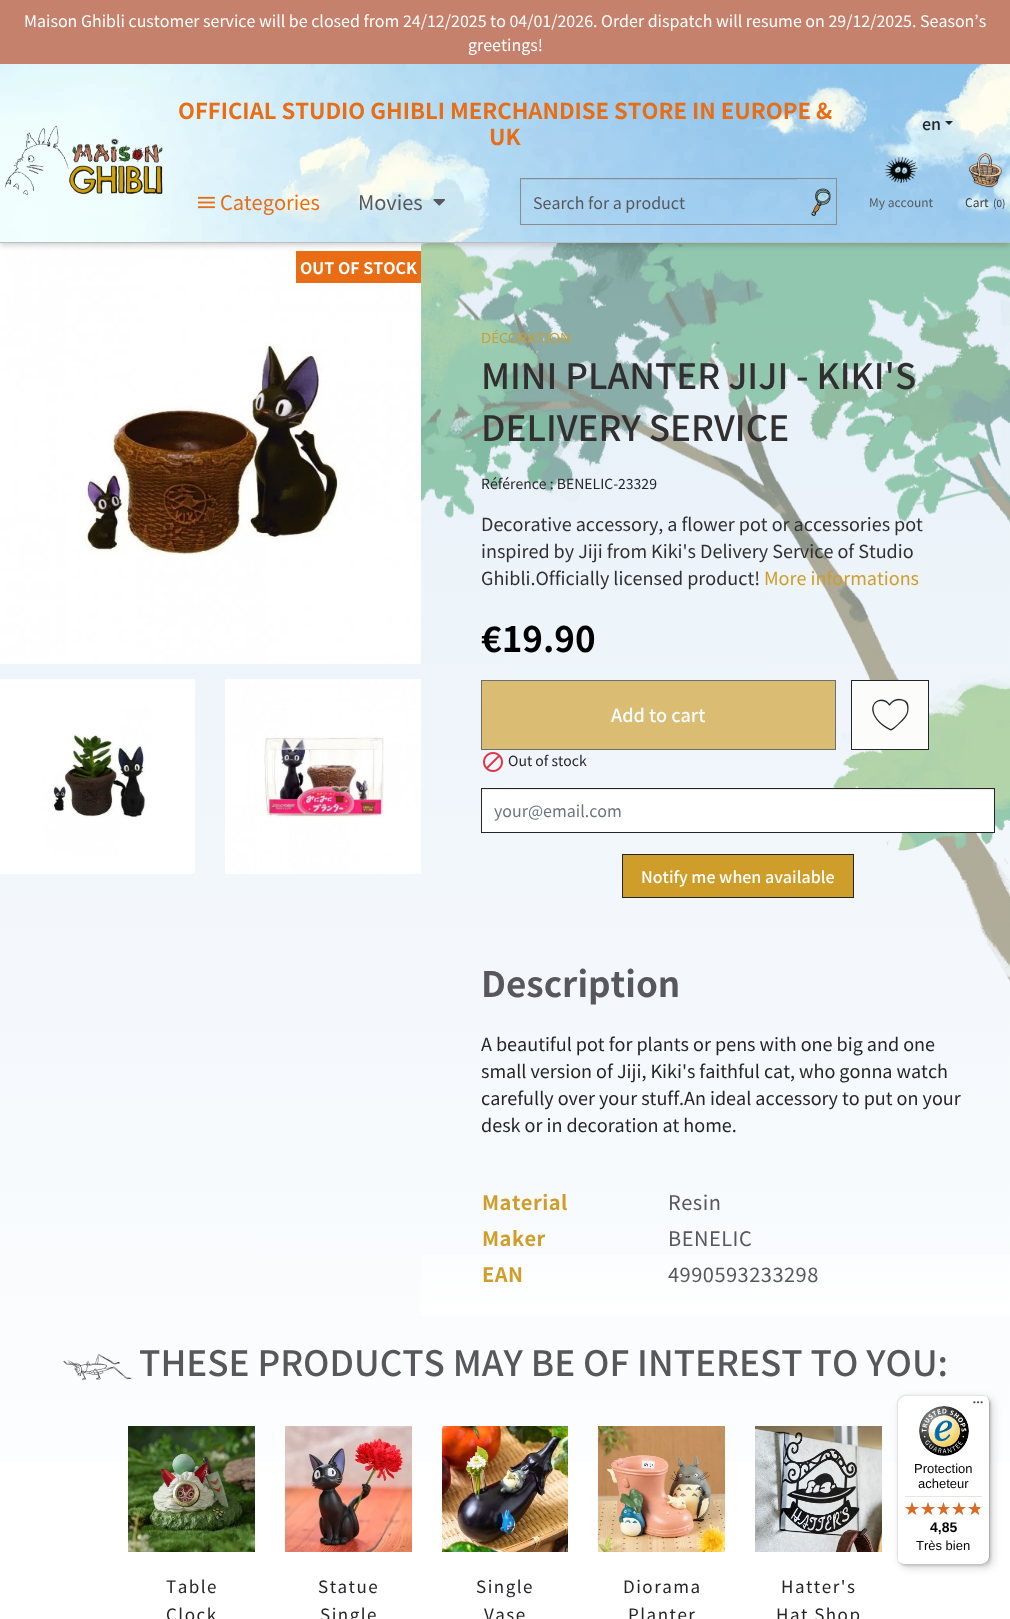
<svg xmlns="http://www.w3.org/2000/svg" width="1010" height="1619">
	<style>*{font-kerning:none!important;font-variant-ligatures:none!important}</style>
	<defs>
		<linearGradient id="g1" gradientUnits="userSpaceOnUse" x1="505" y1="0" x2="505" y2="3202"><stop offset="0" stop-color="#E2EDF7" /><stop offset="0.5" stop-color="#FFFFFF" /><stop offset="1" stop-color="#E2EDF7" /></linearGradient>
		<linearGradient id="g2" gradientUnits="userSpaceOnUse" x1="715" y1="243" x2="716" y2="1316"><stop offset="0.9" stop-color="#FFFFFF" stop-opacity="0" /><stop offset="1" stop-color="#FFFFFF" /></linearGradient>
	</defs>
	<rect width="100%" height="100%" fill="#FFFFFF" />
	<rect x="0" y="243" width="1010" height="1220" fill="url(#g1)" />
	<image x="0" y="243" width="421" height="421" href="assets/img8.png" />
	<rect x="296" y="251" width="125" height="32" fill="#E86D14" />
	<image x="421" y="243" width="589" height="739" href="assets/img11.png" />
	<rect x="0" y="2" width="1010" height="243" fill="#000000" fill-opacity="0.2" filter="blur(3px)" />
	<rect x="0" y="242" width="1010" height="1" fill="#BCBCC2" />
	<rect x="0" y="0" width="1010" height="64" fill="#C5816B" />
	<g font-family="Noto Sans JP" font-size="16" fill="#FFFFFF">
		<text x="24" y="27">Maison Ghibli customer service will be closed from 24/12/2025 to 04/01/2026. Order dispatch will resume on 29/12/2025. Season’s</text>
		<text x="468" y="51">greetings!</text>
	</g>
	<image x="0" y="64" width="1010" height="178" href="assets/img1.png" />
	<image x="5" y="125" width="158" height="70" href="assets/img2.png" />
	<g font-family="Noto Sans JP" font-size="22" font-weight="700" fill="#E86D14">
		<text x="178" y="119">OFFICIAL STUDIO GHIBLI MERCHANDISE STORE IN EUROPE &amp;</text>
		<text x="489" y="145">UK</text>
	</g>
	<image x="198" y="196" width="17" height="13" href="assets/img3.png" />
	<text x="220" y="210" font-family="Noto Sans JP" font-size="20" fill="#E86D14">Categories</text>
	<text x="358" y="210" font-family="Noto Sans JP" font-size="20" fill="#58585C">Movies</text>
	<image x="433" y="199" width="12" height="7" href="assets/img4.png" />
	<rect x="520.5" y="178.5" width="316" height="46" fill="none" stroke="#8B8B8F" />
	<rect x="521" y="179" width="276" height="1" fill="#000000" fill-opacity="0.07" />
	<text x="533" y="209" font-family="Noto Sans JP" font-size="16" fill="#58585C">Search for a product</text>
	<image x="811" y="188" width="20" height="28" href="assets/img5.png" />
	<text x="922" y="130" font-family="Noto Sans JP" font-size="16" font-weight="500" fill="#252528">en</text>
	<path d="M945 121H953L949 125Z" fill="#252528" />
	<image x="885" y="156" width="33" height="28" href="assets/img6.png" />
	<text x="869" y="207" font-family="Noto Sans JP" font-size="12" fill="#58585C">My account</text>
	<image x="968" y="153" width="35" height="35" href="assets/img7.png" />
	<text x="965" y="207" font-family="Noto Sans JP" font-size="12" fill="#363A41">Cart</text>
	<text x="993" y="207" font-family="Noto Sans JP" font-size="10" fill="#363A41">(0)</text>
	<image x="0" y="679" width="195" height="195" href="assets/img9.png" />
	<image x="225" y="679" width="196" height="195" href="assets/img10.png" />
	<text x="300" y="274" font-family="Noto Sans JP" font-size="16" font-weight="700" fill="#FFFFFF">OUT OF STOCK</text>
	<text x="481" y="343" font-family="Noto Sans" font-size="14" fill="#CF9E2A">DÉCORATION</text>
	<g font-family="Noto Sans JP" font-size="35" font-weight="500" fill="#312F2F">
		<text x="481" y="389">MINI PLANTER JIJI - KIKI'S</text>
		<text x="481" y="441">DELIVERY SERVICE</text>
	</g>
	<text x="481" y="489" font-family="Noto Sans JP" font-size="14" fill="#252528">Référence : BENELIC-23329</text>
	<g font-family="Noto Sans JP" font-size="18" fill="#312F2F">
		<text x="481" y="531">Decorative accessory, a flower pot or accessories</text>
		<text x="894" y="531">pot</text>
		<text x="481" y="558">inspired by Jiji from Kiki's Delivery Service of Studio</text>
		<text x="481" y="585">Ghibli.Officially licensed product!</text>
	</g>
	<text x="764" y="585" font-family="Noto Sans JP" font-size="18" fill="#CF9E2A">More informations</text>
	<text x="481" y="652" font-family="Noto Sans JP" font-size="35" font-weight="700" fill="#000000">€19.90</text>
	<rect x="481.5" y="680.5" width="354" height="69" fill="#DABC73" stroke="#6C6E72" />
	<text x="611" y="722" font-family="Noto Sans JP" font-size="18" font-weight="500" fill="#F9FCFE">Add to cart</text>
	<rect x="851.5" y="680.5" width="77" height="69" fill="#FCFCFA" stroke="#252528" />
	<image x="872" y="698" width="37" height="33" href="assets/img12.png" />
	<image x="483" y="752" width="20" height="20" href="assets/img13.png" />
	<text x="508" y="766" font-family="Noto Sans JP" font-size="14" fill="#252528">Out of stock</text>
	<rect x="482" y="790" width="512" height="42" fill="#FFFFFF" />
	<rect x="482" y="789" width="512" height="1" fill="#ECECEC" />
	<rect x="481.5" y="788.5" width="513" height="44" fill="none" stroke="#252528" />
	<text x="494" y="817" font-family="Noto Sans JP" font-size="16" fill="#6C757D">your@email.com</text>
	<rect x="622.5" y="854.5" width="231" height="43" fill="#CF9E2A" stroke="#252528" />
	<text x="641" y="883" font-family="Noto Sans JP" font-size="16" font-weight="500" fill="#FFFFFF">Notify me when available</text>
	<text x="481" y="997" font-family="Noto Sans JP" font-size="35" font-weight="700" fill="#58585C">Description</text>
	<g font-family="Noto Sans JP" font-size="18" fill="#252528">
		<text x="481" y="1051">A beautiful pot for plants or pens with one big and one</text>
		<text x="481" y="1078">small version of Jiji, Kiki's faithful cat, who gonna watch</text>
		<text x="481" y="1105">carefully over your stuff.An ideal accessory to put on your</text>
		<text x="481" y="1132">desk or in decoration at home.</text>
	</g>
	<text x="482" y="1210" font-family="Noto Sans JP" font-size="20" font-weight="700" letter-spacing="0.5" fill="#CF9E2A">Material</text>
	<text x="668" y="1210" font-family="Noto Sans JP" font-size="20" letter-spacing="0.5" fill="#58585C">Resin</text>
	<text x="482" y="1246" font-family="Noto Sans JP" font-size="20" font-weight="700" letter-spacing="0.5" fill="#CF9E2A">Maker</text>
	<text x="668" y="1246" font-family="Noto Sans JP" font-size="20" letter-spacing="0.5" fill="#58585C">BENELIC</text>
	<rect x="421" y="1255" width="589" height="61" fill="url(#g2)" />
	<text x="482" y="1282" font-family="Noto Sans JP" font-size="20" font-weight="700" letter-spacing="0.5" fill="#CF9E2A">EAN</text>
	<text x="668" y="1282" font-family="Noto Sans JP" font-size="20" letter-spacing="0.5" fill="#58585C">4990593233298</text>
	<image x="63" y="1354" width="69" height="27" href="assets/img14.png" />
	<text x="139" y="1376" font-family="Noto Sans JP" font-size="35" font-weight="500" fill="#58585C">THESE PRODUCTS MAY BE OF INTEREST TO YOU:</text>
	<image x="128" y="1426" width="127" height="126" href="assets/img15.png" />
	<g font-family="Noto Sans JP" font-size="17" letter-spacing="1.5" fill="#252528">
		<text x="166" y="1593">Table</text>
		<text x="166" y="1621">Clock</text>
	</g>
	<image x="285" y="1426" width="127" height="126" href="assets/img16.png" />
	<g font-family="Noto Sans JP" font-size="17" letter-spacing="1.5" fill="#252528">
		<text x="318" y="1593">Statue</text>
		<text x="320" y="1621">Single</text>
	</g>
	<image x="442" y="1426" width="126" height="126" href="assets/img17.png" />
	<g font-family="Noto Sans JP" font-size="17" letter-spacing="1.5" fill="#252528">
		<text x="476" y="1593">Single</text>
		<text x="484" y="1621">Vase</text>
	</g>
	<image x="598" y="1426" width="127" height="126" href="assets/img18.png" />
	<g font-family="Noto Sans JP" font-size="17" letter-spacing="1.5" fill="#252528">
		<text x="623" y="1593">Diorama</text>
		<text x="628" y="1621">Planter</text>
	</g>
	<image x="755" y="1426" width="127" height="126" href="assets/img19.png" />
	<g font-family="Noto Sans JP" font-size="17" letter-spacing="1.5" fill="#252528">
		<text x="781" y="1593">Hatter's</text>
		<text x="776" y="1621">Hat Shop</text>
	</g>
	<rect x="900" y="1398" width="93" height="170" rx="8" fill="#000000" fill-opacity="0.15" filter="blur(4px)" />
	<rect x="898" y="1396" width="93" height="170" rx="8" fill="#000000" fill-opacity="0.15" filter="blur(1px)" />
	<rect x="897" y="1395" width="93" height="170" rx="8" fill="#FFFFFF" />
	<path d="M906 1396H983C985 1396 987 1397 989 1399C987 1397 985 1395 982 1395H905C901 1395 897 1399 897 1403V1557C897 1560 899 1562 901 1564C899 1562 898 1560 898 1558V1404C898 1400 902 1396 906 1396Z" fill="#E5E5E5" />
	<path d="M898 1561C900 1563 902 1565 905 1565H982C986 1565 990 1561 990 1557V1403C990 1400 988 1398 986 1396C988 1398 989 1400 989 1402V1556C989 1560 985 1564 981 1564H904C902 1564 900 1563 898 1561Z" fill="#CCCCCC" />
	<path d="M899 1562C900 1564 903 1565 905 1565H982C986 1565 990 1561 990 1557V1403C990 1401 989 1398 987 1397C988 1398 989 1400 989 1402V1556C989 1561 986 1564 981 1564H904C902 1564 900 1563 899 1562Z" fill="#323232" fill-opacity="0.2" />
	<image x="973" y="1401" width="10" height="3" href="assets/img20.png" />
	<path d="M899 1562C900 1564 903 1565 905 1565H982C986 1565 990 1561 990 1557V1556C990 1561 986 1564 982 1564H904C902 1564 900 1563 899 1562Z" fill="#FFFFFF" fill-opacity="0.3" />
	<image x="919" y="1406" width="50" height="50" href="assets/img21.png" />
	<g font-family="Liberation Sans" font-size="13" fill="#000000">
		<text x="914" y="1473">Protection</text>
		<text x="918" y="1488">acheteur</text>
	</g>
	<rect x="905" y="1496" width="77" height="1" fill="#E5E5E5" />
	<image x="905" y="1502" width="14" height="13" href="assets/img22.png" />
	<image x="921" y="1502" width="14" height="13" href="assets/img22.png" />
	<image x="937" y="1502" width="13" height="13" href="assets/img23.png" />
	<image x="952" y="1502" width="14" height="13" href="assets/img22.png" />
	<image x="968" y="1502" width="14" height="13" href="assets/img22.png" />
	<image x="905" y="1502" width="14" height="13" href="assets/img24.png" />
	<image x="921" y="1502" width="14" height="13" href="assets/img24.png" />
	<image x="937" y="1502" width="13" height="13" href="assets/img25.png" />
	<image x="952" y="1502" width="14" height="13" href="assets/img24.png" />
	<image x="968" y="1502" width="12" height="13" href="assets/img26.png" />
	<text x="930" y="1532" font-family="Liberation Sans" font-size="14" font-weight="700" fill="#000000">4,85</text>
	<text x="916" y="1550" font-family="Liberation Sans" font-size="13" fill="#000000">Très bien</text>
</svg>
